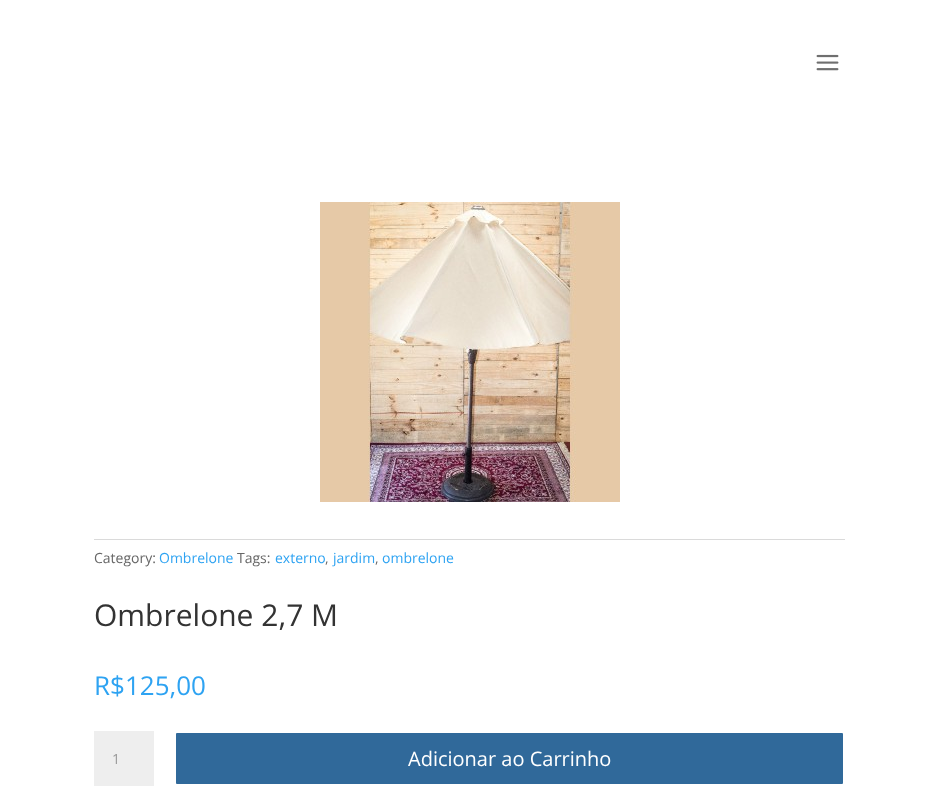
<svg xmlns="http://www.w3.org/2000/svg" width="939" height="786">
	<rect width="100%" height="100%" fill="#FFFFFF" />
	<image x="816" y="54" width="23" height="17" href="assets/img1.png" />
	<image x="320" y="202" width="300" height="300" href="assets/img2.png" />
	<rect x="94" y="539" width="751" height="1" fill="#DADADA" />
	<text x="94" y="563" font-family="Open Sans" font-size="14" fill="#666666">Category:</text>
	<text x="159" y="563" font-family="Open Sans" font-size="14" fill="#2EA3F2">Ombrelone</text>
	<text x="237" y="563" font-family="Open Sans" font-size="14" fill="#666666">Tags:</text>
	<text x="275" y="563" font-family="Open Sans" font-size="14" fill="#2EA3F2">externo</text>
	<text x="325" y="563" font-family="Open Sans" font-size="14" fill="#666666">,</text>
	<text x="333" y="563" font-family="Open Sans" font-size="14" fill="#2EA3F2">jardim</text>
	<text x="375" y="563" font-family="Open Sans" font-size="14" fill="#666666">,</text>
	<text x="382" y="563" font-family="Open Sans" font-size="14" fill="#2EA3F2">ombrelone</text>
	<text x="94" y="626" font-family="Open Sans" font-size="30" fill="#333333">Ombrelone 2,7 M</text>
	<text x="94" y="695" font-family="Open Sans" font-size="26" fill="#2EA3F2">R$125,00</text>
	<rect x="94" y="731" width="60" height="55" fill="#EEEEEE" />
	<text x="112" y="764" font-family="Open Sans" font-size="14" fill="#999999">1</text>
	<rect x="175" y="732" width="669" height="53" rx="2" fill="#30699A" stroke="#FFFFFF" stroke-width="2" />
	<text x="408" y="766" font-family="Open Sans" font-size="20" fill="#FFFFFF">Adicionar ao Carrinho</text>
</svg>
